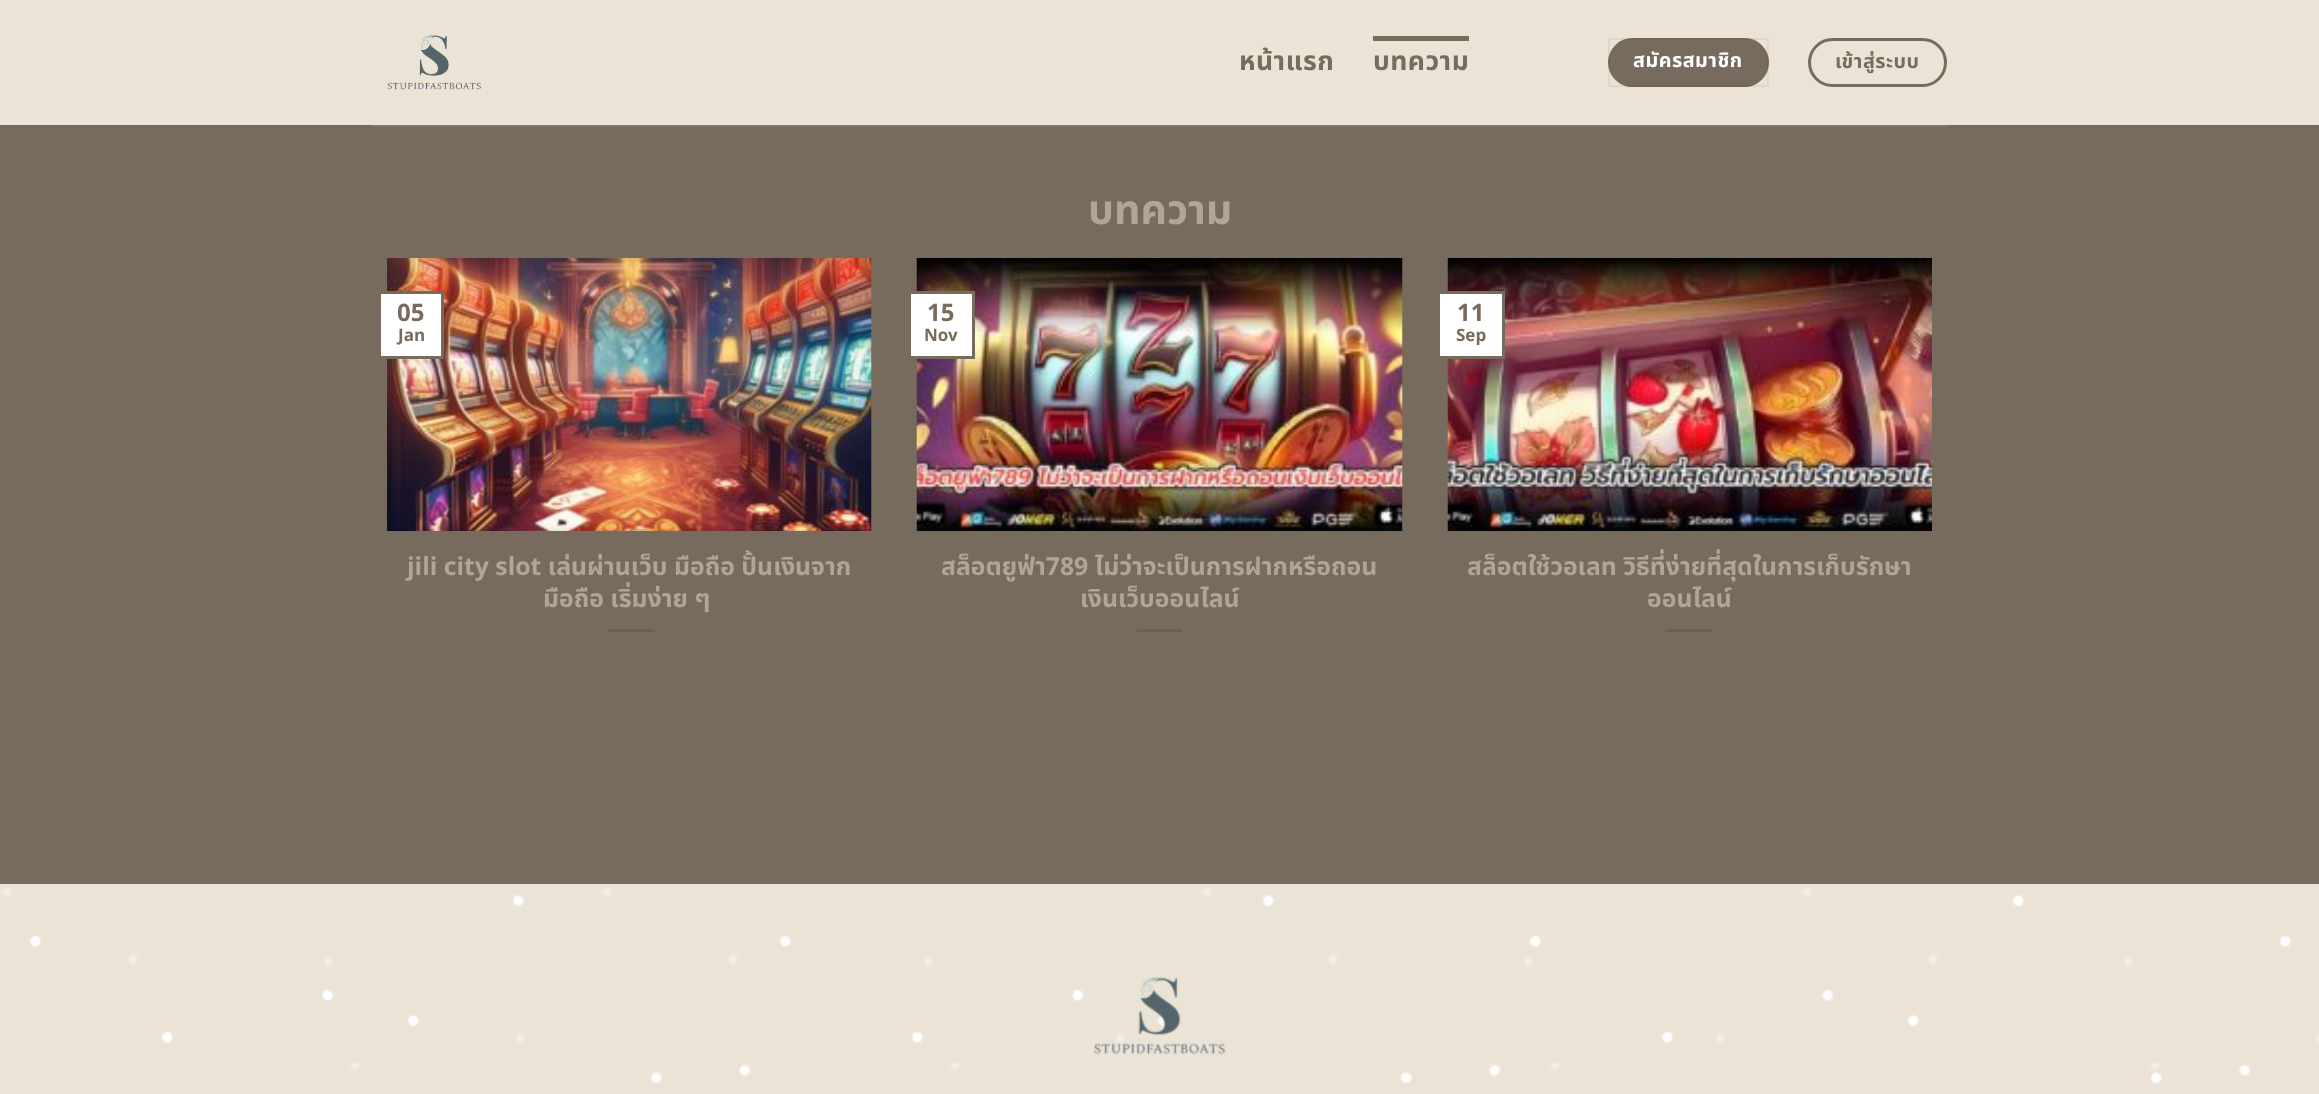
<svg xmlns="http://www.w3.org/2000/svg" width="2319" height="1094">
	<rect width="100%" height="100%" fill="#776B5D" />
	<rect x="0" y="0" width="2319" height="125" fill="#EBE3D5" />
	<image x="387" y="35" width="94" height="55" href="assets/img1.png" />
	<text x="1239" y="70" font-family="Noto Sans Thai" font-size="26.5" font-weight="700" letter-spacing="0.5" fill="#776B5D">หน้าแรก</text>
	<rect x="1373" y="36" width="96" height="5" fill="#776B5D" />
	<text x="1373" y="70" font-family="Noto Sans Thai" font-size="26.5" font-weight="700" letter-spacing="0.5" fill="#776B5D">บทความ</text>
	<rect x="1608" y="38" width="161" height="49" rx="24.5" fill="#776B5D" />
	<rect x="1609" y="39" width="159" height="47" fill="none" stroke="#000000" stroke-opacity="0.05" stroke-width="2" />
	<text x="1633" y="67" font-family="Noto Sans Thai" font-size="19.75" font-weight="700" letter-spacing="0.5" fill="#FFFFFF">สมัครสมาชิก</text>
	<rect x="1809.5" y="39.5" width="136" height="46" rx="23" fill="none" stroke="#776B5D" stroke-width="3" />
	<text x="1835" y="68" font-family="Noto Sans Thai" font-size="19.75" font-weight="700" letter-spacing="0.5" fill="#776B5D">เข้าสู่ระบบ</text>
	<rect x="372" y="125" width="1575" height="2" fill="#83786B" />
	<text x="1088" y="224" font-family="Noto Sans Thai" font-size="41" font-weight="700" fill="#B0A695">บทความ</text>
	<image x="387" y="258" width="485" height="273" href="assets/img2.png" />
	<rect x="379.5" y="292.5" width="63" height="65" fill="#FFFFFF" stroke="#776B5D" stroke-width="3" />
	<text x="397" y="321" font-family="Noto Sans Thai" font-size="24" font-weight="700" fill="#776B5D">05</text>
	<text x="398" y="341" font-family="Noto Sans Thai" font-size="17" font-weight="700" fill="#776B5D">Jan</text>
	<g font-family="Noto Sans Thai" font-size="24.8" font-weight="700" fill="#B0A695">
		<text x="407" y="575">jili city slot เล่นผ่านเว็บ มือถือ ปั้นเงินจาก</text>
		<text x="543" y="607">มือถือ เริ่มง่าย ๆ</text>
	</g>
	<rect x="608" y="629" width="45" height="3" fill="#6B6054" />
	<image x="916" y="258" width="487" height="273" href="assets/img3.png" />
	<rect x="909.5" y="292.5" width="64" height="65" fill="#FFFFFF" stroke="#776B5D" stroke-width="3" />
	<text x="927" y="321" font-family="Noto Sans Thai" font-size="24" font-weight="700" fill="#776B5D">15</text>
	<text x="924" y="341" font-family="Noto Sans Thai" font-size="17" font-weight="700" fill="#776B5D">Nov</text>
	<g font-family="Noto Sans Thai" font-size="24.8" font-weight="700" fill="#B0A695">
		<text x="941" y="575">สล็อตยูฟ่า789 ไม่ว่าจะเป็นการฝากหรือถอน</text>
		<text x="1080" y="607">เงินเว็บออนไลน์</text>
	</g>
	<rect x="1137" y="629" width="45" height="3" fill="#6B6054" />
	<image x="1447" y="258" width="485" height="273" href="assets/img4.png" />
	<rect x="1438.5" y="292.5" width="65" height="65" fill="#FFFFFF" stroke="#776B5D" stroke-width="3" />
	<text x="1457" y="321" font-family="Noto Sans Thai" font-size="24" font-weight="700" fill="#776B5D">11</text>
	<text x="1456" y="341" font-family="Noto Sans Thai" font-size="17" font-weight="700" fill="#776B5D">Sep</text>
	<g font-family="Noto Sans Thai" font-size="24.8" font-weight="700" fill="#B0A695">
		<text x="1467" y="575">สล็อตใช้วอเลท วิธีที่ง่ายที่สุดในการเก็บรักษา</text>
		<text x="1647" y="607">ออนไลน์</text>
	</g>
	<rect x="1667" y="629" width="45" height="3" fill="#6B6054" />
	<rect x="0" y="884" width="2319" height="210" fill="#EBE3D5" />
	<image x="0" y="887" width="2319" height="197" href="assets/img5.png" />
	<image x="1093" y="977" width="133" height="78" href="assets/img6.png" />
</svg>
